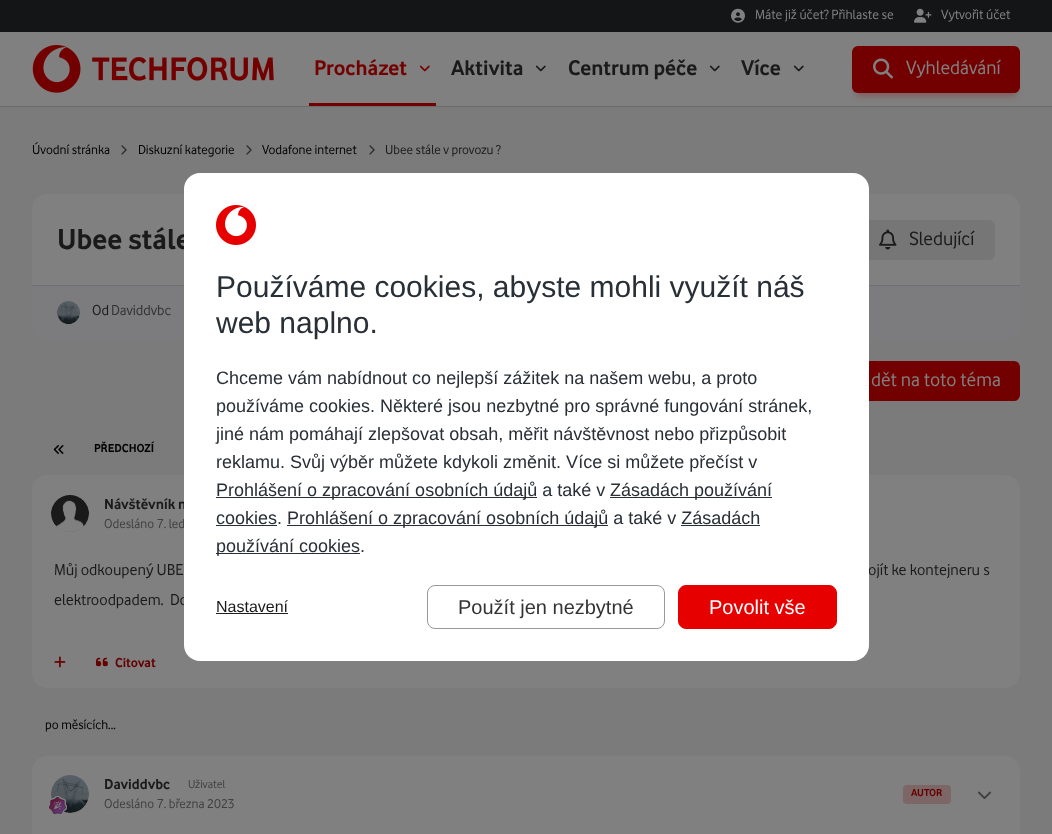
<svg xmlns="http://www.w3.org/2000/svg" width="1052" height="834">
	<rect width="100%" height="100%" fill="#7B7B7B" />
	<rect x="0" y="0" width="1052" height="32" fill="#131516" />
	<image x="731" y="8" width="14" height="15" href="assets/img1.png" />
	<text x="755" y="19" font-family="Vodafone" font-size="14" fill="#808080">Máte již účet? Přihlaste se</text>
	<image x="914" y="8" width="18" height="15" href="assets/img2.png" />
	<text x="941" y="19" font-family="Vodafone" font-size="14" fill="#808080">Vytvořit účet</text>
	<rect x="0" y="32" width="1052" height="74" fill="#808080" />
	<rect x="0" y="106" width="1052" height="1" fill="#6B6B6B" />
	<image x="32" y="45" width="242" height="48" href="assets/img3.png" />
	<text x="314" y="75" font-family="Vodafone" font-size="22" font-weight="700" fill="#730000">Procházet</text>
	<image x="419" y="65" width="11" height="7" href="assets/img4.png" />
	<rect x="309" y="103" width="127" height="3" fill="#730000" />
	<text x="451" y="75" font-family="Vodafone" font-size="22" font-weight="700" fill="#1A1A1A">Aktivita</text>
	<image x="535" y="65" width="11" height="7" href="assets/img5.png" />
	<text x="568" y="75" font-family="Vodafone" font-size="22" font-weight="700" fill="#1A1A1A">Centrum péče</text>
	<image x="709" y="65" width="11" height="7" href="assets/img5.png" />
	<text x="741" y="75" font-family="Vodafone" font-size="22" font-weight="700" fill="#1A1A1A">Více</text>
	<image x="793" y="65" width="11" height="7" href="assets/img5.png" />
	<rect x="856" y="57" width="160" height="39" rx="2" fill="#800000" fill-opacity="0.3" filter="blur(3px)" />
	<rect x="852" y="46" width="168" height="47" rx="6" fill="#730000" />
	<image x="873" y="58" width="20" height="21" href="assets/img6.png" />
	<text x="906" y="74" font-family="Vodafone" font-size="20" fill="#808080">Vyhledávání</text>
	<text x="32" y="154" font-family="Vodafone" font-size="13.5" fill="#020202">Úvodní stránka</text>
	<image x="121" y="145" width="6" height="10" href="assets/img7.png" />
	<text x="138" y="154" font-family="Vodafone" font-size="13.5" fill="#020202">Diskuzní kategorie</text>
	<image x="246" y="145" width="6" height="10" href="assets/img7.png" />
	<text x="262" y="154" font-family="Vodafone" font-size="13.5" fill="#020202">Vodafone internet</text>
	<image x="369" y="145" width="6" height="10" href="assets/img7.png" />
	<text x="385" y="154" font-family="Vodafone" font-size="13.5" fill="#1A1A1A">Ubee stále v provozu ?</text>
	<rect x="32" y="194" width="988" height="145" rx="15" fill="#808080" />
	<text x="57" y="249" font-family="Vodafone" font-size="30" font-weight="700" fill="#1A1A1A">Ubee stále</text>
	<rect x="857" y="220" width="138" height="40" rx="6" fill="#767676" />
	<image x="879" y="229" width="18" height="21" href="assets/img8.png" />
	<text x="909" y="245" font-family="Vodafone" font-size="20" fill="#1A1A1A">Sledující</text>
	<path d="M32 285H1020V324C1020 332.5 1013.5 339 1005 339H47C38.5 339 32 332.5 32 324Z" fill="#7C7C7E" />
	<rect x="32" y="285" width="988" height="1" fill="#6C7075" />
	<circle cx="68.5" cy="312.5" r="11.5" fill="#737579" />
	<image x="57" y="301" width="23" height="23" href="assets/img9.png" />
	<text x="92" y="315" font-family="Vodafone" font-size="15" fill="#1A1A1A">Od</text>
	<text x="111" y="315" font-family="Vodafone" font-size="15" fill="#333333">Daviddvbc</text>
	<rect x="758" y="361" width="262" height="40" rx="6" fill="#730000" />
	<text x="871" y="386" font-family="Vodafone" font-size="20" fill="#808080">dět na toto téma</text>
	<image x="53" y="445" width="11" height="9" href="assets/img10.png" />
	<text x="94" y="452" font-family="Vodafone" font-size="12" font-weight="700" fill="#020202">PŘEDCHOZÍ</text>
	<rect x="32" y="475" width="988" height="213" rx="15" fill="#808080" />
	<rect x="51" y="495" width="38" height="37" rx="18.5" fill="#737579" />
	<image x="51" y="495" width="38" height="37" href="assets/img11.png" />
	<text x="104" y="509" font-family="Vodafone" font-size="15" font-weight="700" fill="#1A1A1A">Návštěvník m</text>
	<text x="104" y="528" font-family="Vodafone" font-size="13.5" fill="#3F3F3F">Odesláno 7. led</text>
	<g font-family="Vodafone" font-size="16.5" fill="#1A1A1A">
		<text x="54" y="575">Můj odkoupený UBE</text>
		<text x="868" y="575">ojít ke kontejneru s</text>
		<text x="54" y="605" xml:space="preserve">elektroodpadem.  Do</text>
	</g>
	<image x="54" y="656" width="12" height="12" href="assets/img12.png" />
	<image x="96" y="657" width="12" height="10" href="assets/img13.png" />
	<text x="115" y="667" font-family="Vodafone" font-size="13.5" font-weight="700" fill="#640000">Citovat</text>
	<text x="45" y="729" font-family="Vodafone" font-size="13.5" fill="#020202">po měsících...</text>
	<rect x="32" y="756" width="988" height="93" rx="15" fill="#808080" />
	<circle cx="70" cy="794" r="19" fill="#737579" />
	<image x="51" y="775" width="38" height="38" href="assets/img14.png" />
	<image x="49" y="796" width="18" height="18" href="assets/img15.png" />
	<text x="104" y="789" font-family="Vodafone" font-size="15" font-weight="700" fill="#1A1A1A">Daviddvbc</text>
	<text x="188" y="788" font-family="Vodafone" font-size="12" fill="#3F3F3F">Uživatel</text>
	<text x="104" y="808" font-family="Vodafone" font-size="13.5" fill="#3F3F3F">Odesláno 7. března 2023</text>
	<rect x="903" y="785" width="48" height="19" rx="4" fill="#7D6666" />
	<text x="911" y="796" font-family="Vodafone" font-size="10.5" font-weight="700" fill="#640000">AUTOR</text>
	<image x="978" y="791" width="13" height="8" href="assets/img16.png" />
	<rect x="184" y="173" width="685" height="488" rx="16" fill="#FFFFFF" />
	<image x="216" y="205" width="40" height="40" href="assets/img17.png" />
	<g font-family="Liberation Sans" font-size="30" fill="#282F36">
		<text x="216" y="297">Používáme cookies, abyste mohli využít náš</text>
		<text x="216" y="333">web naplno.</text>
	</g>
	<g font-family="Liberation Sans" font-size="18" fill="#282F36">
		<text x="216" y="384">Chceme vám nabídnout co nejlepší zážitek na našem webu, a proto</text>
		<text x="216" y="412">používáme cookies. Některé jsou nezbytné pro správné fungování stránek,</text>
		<text x="216" y="440">jiné nám pomáhají zlepšovat obsah, měřit návštěvnost nebo přizpůsobit</text>
		<text x="216" y="468">reklamu. Svůj výběr můžete kdykoli změnit. Více si můžete přečíst v</text>
	</g>
	<rect x="216" y="497" width="321" height="1" fill="#282F36" />
	<text x="216" y="496" font-family="Liberation Sans" font-size="18" fill="#282F36">Prohlášení o zpracování osobních údajů a také v</text>
	<rect x="610" y="497" width="162" height="1" fill="#282F36" />
	<g font-family="Liberation Sans" font-size="18" fill="#282F36">
		<text x="610" y="496">Zásadách používání</text>
		<text x="216" y="524">cookies.</text>
	</g>
	<rect x="216" y="525" width="61" height="1" fill="#282F36" />
	<rect x="287" y="525" width="321" height="1" fill="#282F36" />
	<text x="287" y="524" font-family="Liberation Sans" font-size="18" fill="#282F36">Prohlášení o zpracování osobních údajů a také v Zásadách</text>
	<rect x="681" y="525" width="79" height="1" fill="#282F36" />
	<rect x="216" y="553" width="144" height="1" fill="#282F36" />
	<text x="216" y="552" font-family="Liberation Sans" font-size="18" fill="#282F36">používání cookies.</text>
	<text x="216" y="612" font-family="Liberation Sans" font-size="16" fill="#1A1A1A">Nastavení</text>
	<rect x="216" y="613" width="72" height="1" fill="#1E1E1E" />
	<rect x="427.5" y="585.5" width="237" height="43" rx="7.5" fill="none" stroke="#999999" />
	<text x="458" y="614" font-family="Liberation Sans" font-size="20" fill="#333333">Použít jen nezbytné</text>
	<rect x="678.5" y="585.5" width="158" height="43" rx="7.5" fill="#E60000" stroke="#E60000" />
	<text x="709" y="614" font-family="Liberation Sans" font-size="20" fill="#FFFFFF">Povolit vše</text>
</svg>
